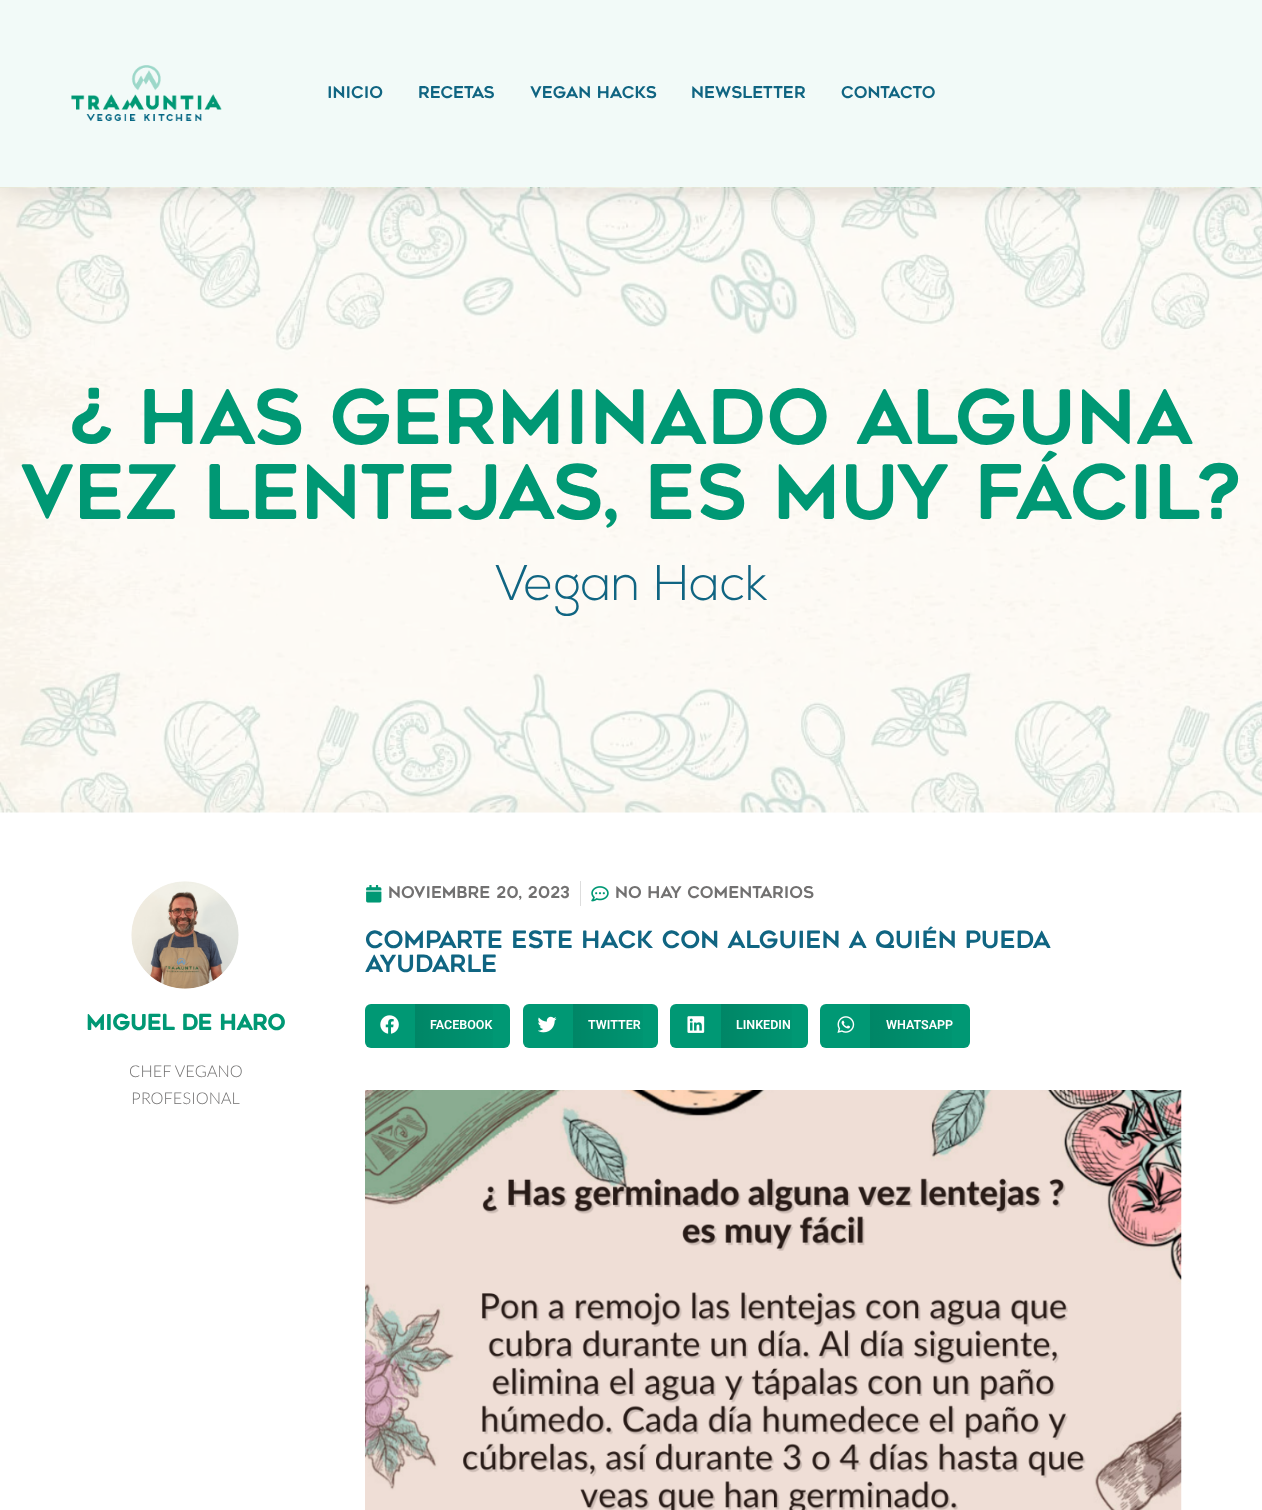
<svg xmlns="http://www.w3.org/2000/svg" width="1262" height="1510">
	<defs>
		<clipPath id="clip1"><path d="M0 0H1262V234H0ZM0 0H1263V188H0Z" clip-rule="evenodd" /></clipPath>
		<linearGradient id="g1" gradientUnits="userSpaceOnUse" x1="415" y1="1026" x2="510" y2="1026"><stop offset="0" stop-color="#000000" stop-opacity="0.12" /><stop offset="1" stop-color="#000000" stop-opacity="0" /></linearGradient>
		<linearGradient id="g2" gradientUnits="userSpaceOnUse" x1="573" y1="1026" x2="658" y2="1026"><stop offset="0" stop-color="#000000" stop-opacity="0.12" /><stop offset="1" stop-color="#000000" stop-opacity="0" /></linearGradient>
		<linearGradient id="g3" gradientUnits="userSpaceOnUse" x1="721" y1="1026" x2="808" y2="1026"><stop offset="0" stop-color="#000000" stop-opacity="0.12" /><stop offset="1" stop-color="#000000" stop-opacity="0" /></linearGradient>
		<linearGradient id="g4" gradientUnits="userSpaceOnUse" x1="870" y1="1026" x2="970" y2="1026"><stop offset="0" stop-color="#000000" stop-opacity="0.12" /><stop offset="1" stop-color="#000000" stop-opacity="0" /></linearGradient>
	</defs>
	<rect width="100%" height="100%" fill="#FFFFFF" />
	<image x="0" y="187" width="1262" height="626" href="assets/img2.png" />
	<g clip-path="url(#clip1)">
		<rect x="0" y="0" width="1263" height="188" fill="#000000" fill-opacity="0.15" filter="blur(15px)" />
	</g>
	<rect x="0" y="0" width="1262" height="188" fill="#009874" fill-opacity="0.05" />
	<image x="71" y="65" width="151" height="56" href="assets/img1.png" />
	<g font-family="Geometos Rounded" font-size="16.25" fill="#106582">
		<text x="327" y="98">Inicio</text>
		<text x="418" y="98">Recetas</text>
		<text x="530" y="98">Vegan Hacks</text>
		<text x="691" y="98">Newsletter</text>
		<text x="841" y="98">Contacto</text>
	</g>
	<g font-family="Geometos Rounded" font-size="75" fill="#009874">
		<text x="69" y="444">¿ Has germinado alguna</text>
		<text x="20" y="519">vez lentejas, es muy fácil?</text>
	</g>
	<text x="495" y="600" font-family="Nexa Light" font-size="50" font-weight="300" fill="#106582">Vegan Hack</text>
	<image x="366" y="885" width="16" height="18" href="assets/img3.png" />
	<text x="388" y="898" font-family="Geometos Rounded" font-size="16.25" fill="#727171">noviembre 20, 2023</text>
	<rect x="580" y="881" width="1" height="25" fill="#DDDDDD" />
	<image x="591" y="886" width="18" height="16" href="assets/img4.png" />
	<text x="615" y="898" font-family="Geometos Rounded" font-size="16.25" fill="#727171">No hay comentarios</text>
	<g font-family="Geometos Rounded" font-size="23.75" fill="#106582">
		<text x="365" y="948">COMPARTE ESTE HACK CON ALGUIEN A QUIÉN PUEDA</text>
		<text x="365" y="972">AYUDARLE</text>
	</g>
	<rect x="365" y="1004" width="145" height="44" rx="6" fill="#009874" />
	<image x="380" y="1015" width="19" height="19" href="assets/img5.png" />
	<rect x="415" y="1004" width="78" height="44" fill="url(#g1)" />
	<text x="430" y="1029" font-family="Roboto" font-size="12.5" font-weight="600" fill="#FFFFFF">FACEBOOK</text>
	<rect x="523" y="1004" width="135" height="44" rx="6" fill="#009874" />
	<image x="538" y="1016" width="19" height="17" href="assets/img6.png" />
	<rect x="573" y="1004" width="70" height="44" fill="url(#g2)" />
	<text x="588" y="1029" font-family="Roboto" font-size="12.5" font-weight="600" fill="#FFFFFF">TWITTER</text>
	<rect x="670" y="1004" width="138" height="44" rx="6" fill="#009874" />
	<image x="687" y="1016" width="18" height="17" href="assets/img7.png" />
	<rect x="721" y="1004" width="71" height="44" fill="url(#g3)" />
	<text x="736" y="1029" font-family="Roboto" font-size="12.5" font-weight="600" fill="#FFFFFF">LINKEDIN</text>
	<rect x="820" y="1004" width="150" height="44" rx="6" fill="#009874" />
	<image x="837" y="1016" width="18" height="17" href="assets/img8.png" />
	<rect x="870" y="1004" width="82" height="44" fill="url(#g4)" />
	<text x="886" y="1029" font-family="Roboto" font-size="12.5" font-weight="600" fill="#FFFFFF">WHATSAPP</text>
	<image x="365" y="1090" width="817" height="420" href="assets/img9.png" />
	<image x="131" y="881" width="108" height="108" href="assets/img10.png" />
	<text x="86" y="1030" font-family="Geometos Rounded" font-size="21.25" font-weight="700" fill="#009874">miguel de haro</text>
	<g font-family="Lato" font-size="16.25" font-weight="300" fill="#727171">
		<text x="129" y="1077">CHEF VEGANO</text>
		<text x="131" y="1104">PROFESIONAL</text>
	</g>
</svg>
